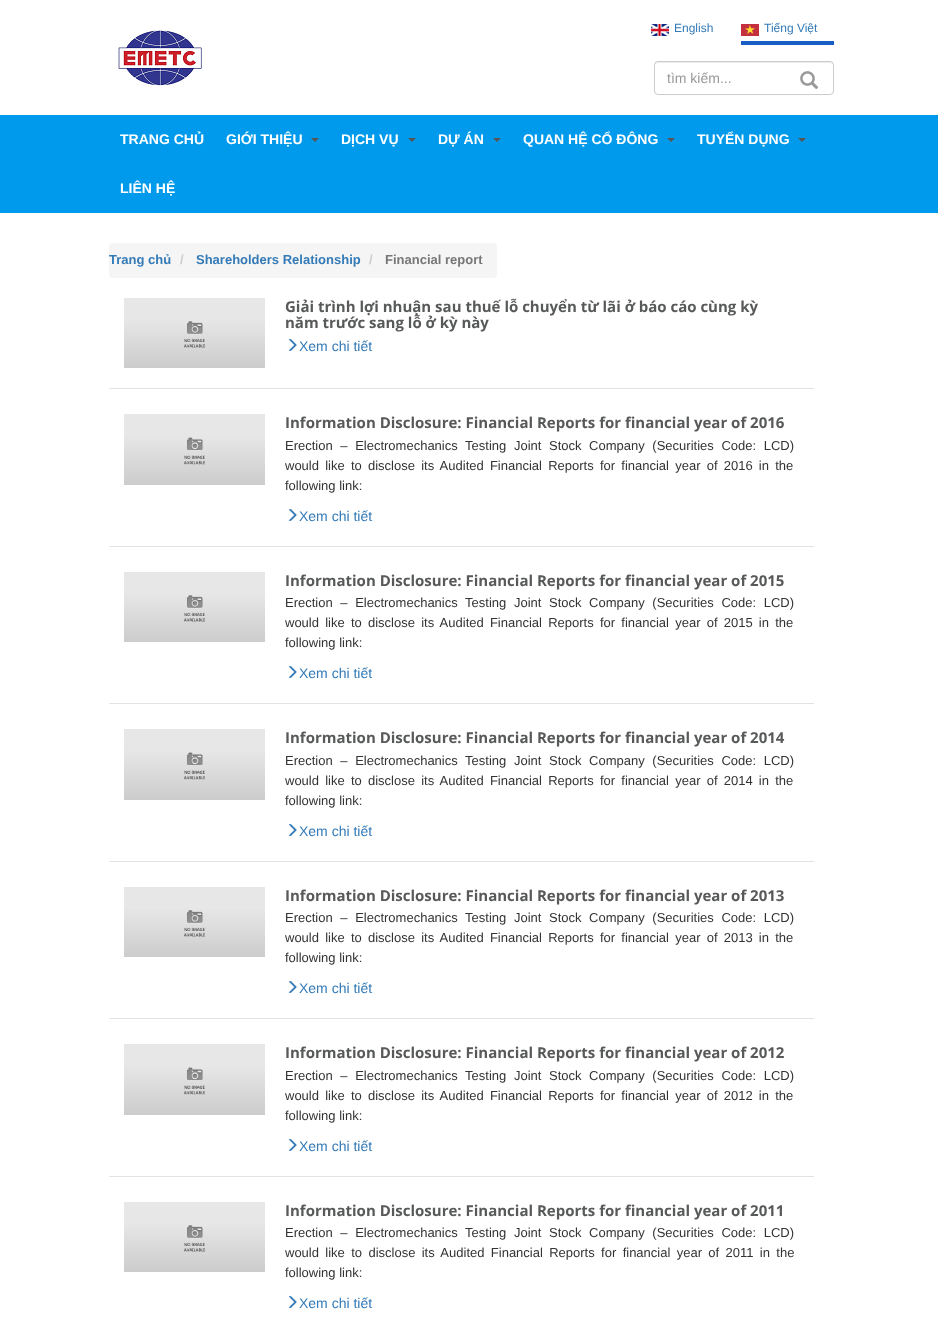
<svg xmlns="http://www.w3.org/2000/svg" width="938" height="1324">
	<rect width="100%" height="100%" fill="#FFFFFF" />
	<image x="651" y="24" width="18" height="12" href="assets/img1.png" />
	<text x="674" y="32" font-family="Liberation Sans" font-size="12" fill="#337AB7">English</text>
	<rect x="741" y="41" width="93" height="4" fill="#195EC5" />
	<image x="741" y="24" width="18" height="12" href="assets/img2.png" />
	<text x="764" y="32" font-family="Liberation Sans" font-size="12" fill="#337AB7">Tiếng Việt</text>
	<image x="118" y="30" width="84" height="56" href="assets/img3.png" />
	<path d="M658 63H830C832 63 833 64 833 66V65C833 63 832 62 830 62H658C656 62 655 63 655 65V66C655 64 656 63 658 63Z" fill="#ECECEC" />
	<rect x="654.5" y="61.5" width="179" height="33" rx="3.5" fill="none" stroke="#CCCCCC" />
	<text x="667" y="83" font-family="Liberation Sans" font-size="14" fill="#999999">tìm kiếm...</text>
	<image x="800" y="71" width="19" height="18" href="assets/img4.png" />
	<rect x="0" y="115" width="938" height="98" fill="#009AEC" />
	<g font-family="Liberation Sans" font-size="14" font-weight="700" fill="#FFFFFF">
		<text x="120" y="144">TRANG CHỦ</text>
		<text x="226" y="144">GIỚI THIỆU</text>
	</g>
	<path d="M311 138H319L315 142Z" fill="#555555" />
	<text x="341" y="144" font-family="Liberation Sans" font-size="14" font-weight="700" fill="#FFFFFF">DỊCH VỤ</text>
	<path d="M408 138H416L412 142Z" fill="#555555" />
	<text x="438" y="144" font-family="Liberation Sans" font-size="14" font-weight="700" fill="#FFFFFF">DỰ ÁN</text>
	<path d="M493 138H501L497 142Z" fill="#555555" />
	<text x="523" y="144" font-family="Liberation Sans" font-size="14" font-weight="700" fill="#FFFFFF">QUAN HỆ CỔ ĐÔNG</text>
	<path d="M667 138H675L671 142Z" fill="#555555" />
	<text x="697" y="144" font-family="Liberation Sans" font-size="14" font-weight="700" fill="#FFFFFF">TUYỂN DỤNG</text>
	<path d="M798 138H806L802 142Z" fill="#555555" />
	<text x="120" y="193" font-family="Liberation Sans" font-size="14" font-weight="700" fill="#FFFFFF">LIÊN HỆ</text>
	<rect x="109" y="243" width="388" height="35" rx="4" fill="#F5F5F5" />
	<text x="109" y="264" font-family="Liberation Sans" font-size="13" font-weight="700" fill="#337AB7">Trang chủ</text>
	<text x="180" y="264" font-family="Liberation Sans" font-size="13" font-weight="700" fill="#CCCCCC">/</text>
	<text x="196" y="264" font-family="Liberation Sans" font-size="13" font-weight="700" fill="#337AB7">Shareholders Relationship</text>
	<text x="369" y="264" font-family="Liberation Sans" font-size="13" font-weight="700" fill="#CCCCCC">/</text>
	<text x="385" y="264" font-family="Liberation Sans" font-size="13" font-weight="700" fill="#777777">Financial report</text>
	<rect x="109" y="388" width="705" height="1" fill="#E3E3E3" />
	<image x="124" y="298" width="141" height="70" href="assets/img5.png" />
	<g font-family="Open Sans" font-size="15" font-weight="700" fill="#585959">
		<text x="285" y="312">Giải trình lợi nhuận sau thuế lỗ chuyển từ lãi ở báo cáo cùng kỳ</text>
		<text x="285" y="328">năm trước sang lỗ ở kỳ này</text>
	</g>
	<image x="288" y="339" width="9" height="12" href="assets/img6.png" />
	<text x="299" y="351" font-family="Liberation Sans" font-size="14" fill="#337AB7">Xem chi tiết</text>
	<rect x="109" y="546" width="705" height="1" fill="#E3E3E3" />
	<image x="124" y="414" width="141" height="71" href="assets/img7.png" />
	<text x="285" y="428" font-family="Open Sans" font-size="15" font-weight="700" fill="#585959">Information Disclosure: Financial Reports for financial year of 2016</text>
	<g font-family="Liberation Sans" font-size="13" fill="#333333">
		<text x="285" y="450" word-spacing="4">Erection – Electromechanics Testing Joint Stock Company (Securities Code: LCD)</text>
		<text x="285" y="470" word-spacing="2.6">would like to disclose its Audited Financial Reports for financial year of 2016 in the</text>
		<text x="285" y="490">following link:</text>
	</g>
	<image x="288" y="509" width="9" height="12" href="assets/img6.png" />
	<text x="299" y="521" font-family="Liberation Sans" font-size="14" fill="#337AB7">Xem chi tiết</text>
	<rect x="109" y="703" width="705" height="1" fill="#E3E3E3" />
	<image x="124" y="572" width="141" height="70" href="assets/img5.png" />
	<text x="285" y="586" font-family="Open Sans" font-size="15" font-weight="700" fill="#585959">Information Disclosure: Financial Reports for financial year of 2015</text>
	<g font-family="Liberation Sans" font-size="13" fill="#333333">
		<text x="285" y="607" word-spacing="4">Erection – Electromechanics Testing Joint Stock Company (Securities Code: LCD)</text>
		<text x="285" y="627" word-spacing="2.6">would like to disclose its Audited Financial Reports for financial year of 2015 in the</text>
		<text x="285" y="647">following link:</text>
	</g>
	<image x="288" y="666" width="9" height="12" href="assets/img6.png" />
	<text x="299" y="678" font-family="Liberation Sans" font-size="14" fill="#337AB7">Xem chi tiết</text>
	<rect x="109" y="861" width="705" height="1" fill="#E3E3E3" />
	<image x="124" y="729" width="141" height="71" href="assets/img7.png" />
	<text x="285" y="743" font-family="Open Sans" font-size="15" font-weight="700" fill="#585959">Information Disclosure: Financial Reports for financial year of 2014</text>
	<g font-family="Liberation Sans" font-size="13" fill="#333333">
		<text x="285" y="765" word-spacing="4">Erection – Electromechanics Testing Joint Stock Company (Securities Code: LCD)</text>
		<text x="285" y="785" word-spacing="2.6">would like to disclose its Audited Financial Reports for financial year of 2014 in the</text>
		<text x="285" y="805">following link:</text>
	</g>
	<image x="288" y="824" width="9" height="12" href="assets/img6.png" />
	<text x="299" y="836" font-family="Liberation Sans" font-size="14" fill="#337AB7">Xem chi tiết</text>
	<rect x="109" y="1018" width="705" height="1" fill="#E3E3E3" />
	<image x="124" y="887" width="141" height="70" href="assets/img5.png" />
	<text x="285" y="901" font-family="Open Sans" font-size="15" font-weight="700" fill="#585959">Information Disclosure: Financial Reports for financial year of 2013</text>
	<g font-family="Liberation Sans" font-size="13" fill="#333333">
		<text x="285" y="922" word-spacing="4">Erection – Electromechanics Testing Joint Stock Company (Securities Code: LCD)</text>
		<text x="285" y="942" word-spacing="2.6">would like to disclose its Audited Financial Reports for financial year of 2013 in the</text>
		<text x="285" y="962">following link:</text>
	</g>
	<image x="288" y="981" width="9" height="12" href="assets/img6.png" />
	<text x="299" y="993" font-family="Liberation Sans" font-size="14" fill="#337AB7">Xem chi tiết</text>
	<rect x="109" y="1176" width="705" height="1" fill="#E3E3E3" />
	<image x="124" y="1044" width="141" height="71" href="assets/img7.png" />
	<text x="285" y="1058" font-family="Open Sans" font-size="15" font-weight="700" fill="#585959">Information Disclosure: Financial Reports for financial year of 2012</text>
	<g font-family="Liberation Sans" font-size="13" fill="#333333">
		<text x="285" y="1080" word-spacing="4">Erection – Electromechanics Testing Joint Stock Company (Securities Code: LCD)</text>
		<text x="285" y="1100" word-spacing="2.6">would like to disclose its Audited Financial Reports for financial year of 2012 in the</text>
		<text x="285" y="1120">following link:</text>
	</g>
	<image x="288" y="1139" width="9" height="12" href="assets/img6.png" />
	<text x="299" y="1151" font-family="Liberation Sans" font-size="14" fill="#337AB7">Xem chi tiết</text>
	<image x="124" y="1202" width="141" height="70" href="assets/img5.png" />
	<text x="285" y="1216" font-family="Open Sans" font-size="15" font-weight="700" fill="#585959">Information Disclosure: Financial Reports for financial year of 2011</text>
	<g font-family="Liberation Sans" font-size="13" fill="#333333">
		<text x="285" y="1237" word-spacing="4">Erection – Electromechanics Testing Joint Stock Company (Securities Code: LCD)</text>
		<text x="285" y="1257" word-spacing="2.75">would like to disclose its Audited Financial Reports for financial year of 2011 in the</text>
		<text x="285" y="1277">following link:</text>
	</g>
	<image x="288" y="1296" width="9" height="12" href="assets/img6.png" />
	<text x="299" y="1308" font-family="Liberation Sans" font-size="14" fill="#337AB7">Xem chi tiết</text>
</svg>
